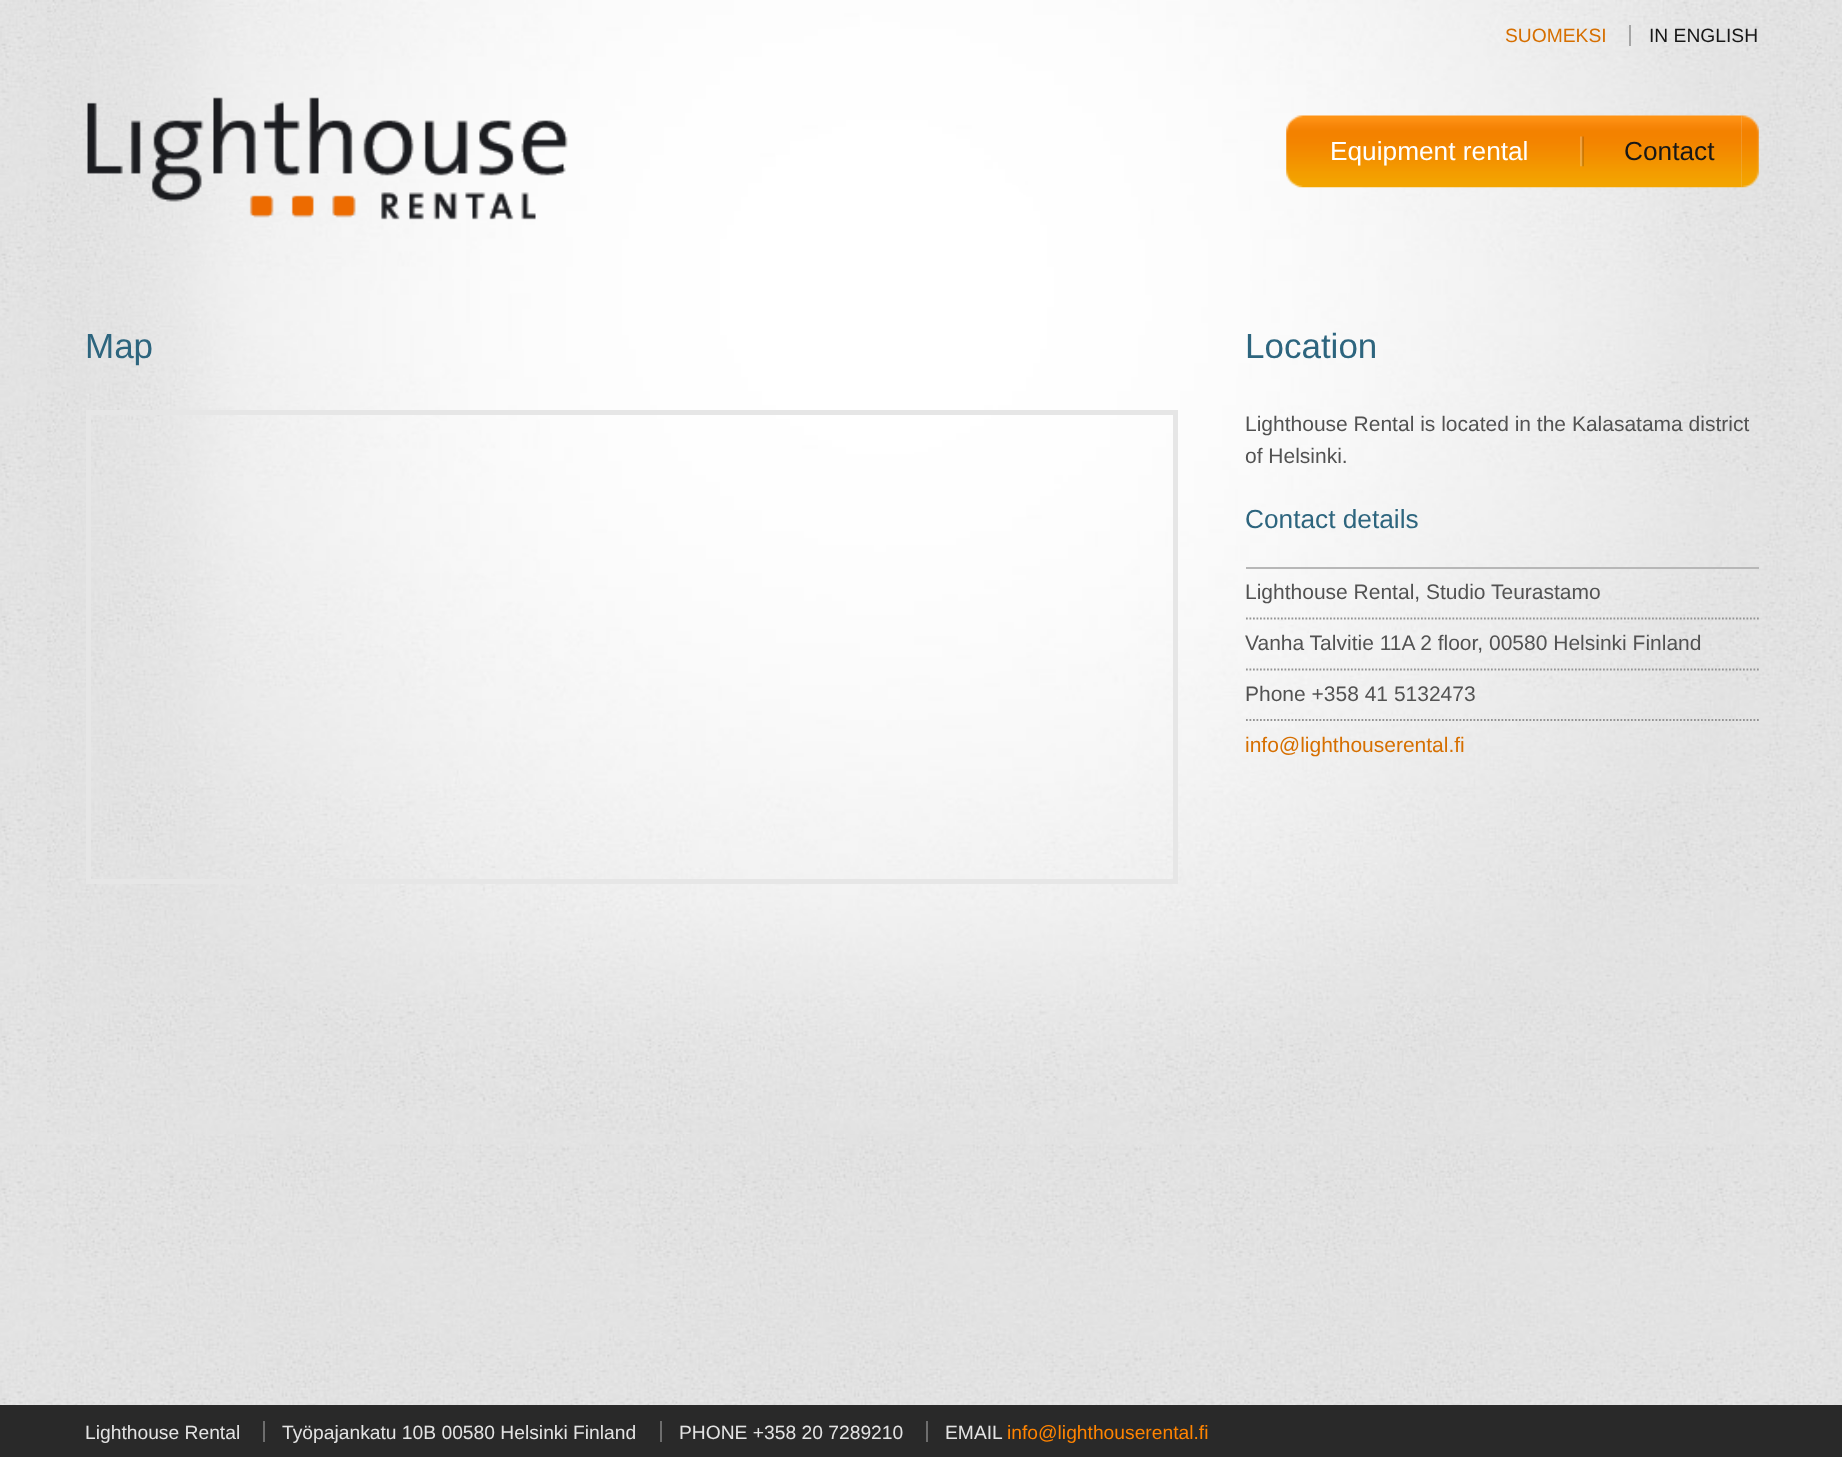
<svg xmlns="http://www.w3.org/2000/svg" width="1842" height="1457">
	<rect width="100%" height="100%" fill="#FFFFFF" />
	<image x="0" y="0" width="1842" height="1405" href="assets/img1.png" />
	<image x="47" y="0" width="1749" height="1134" href="assets/img2.png" />
	<text x="1505" y="42" font-family="Liberation Sans" font-size="19.25" fill="#D66F00">SUOMEKSI</text>
	<text x="1649" y="42" font-family="Liberation Sans" font-size="19.25" fill="#171717">IN ENGLISH</text>
	<rect x="1629" y="25" width="2" height="21" fill="#A5A5A5" />
	<image x="87" y="97" width="481" height="123" href="assets/img3.png" />
	<image x="1741" y="115" width="18" height="73" href="assets/img4.png" />
	<image x="1286" y="115" width="456" height="73" href="assets/img5.png" />
	<text x="1330" y="160" font-family="Liberation Sans" font-size="26.25" fill="#FFFFFF">Equipment rental</text>
	<image x="1580" y="136" width="4" height="31" href="assets/img6.png" />
	<text x="1624" y="160" font-family="Liberation Sans" font-size="26.25" fill="#171717">Contact</text>
	<text x="85" y="358" font-family="Liberation Sans" font-size="35" fill="#2D657E">Map</text>
	<rect x="88.5" y="412.5" width="1087" height="469" fill="none" stroke="#E6E6E6" stroke-width="5" />
	<text x="1245" y="358" font-family="Liberation Sans" font-size="35" fill="#2D657E">Location</text>
	<g font-family="Liberation Sans" font-size="21" fill="#525252">
		<text x="1245" y="431">Lighthouse Rental is located in the Kalasatama district</text>
		<text x="1245" y="463">of Helsinki.</text>
	</g>
	<text x="1245" y="528" font-family="Liberation Sans" font-size="26.25" fill="#2D657E">Contact details</text>
	<rect x="1246" y="567" width="513" height="2" fill="#B7B7B7" />
	<path d="M1246 618.5H1759" fill="none" stroke="#949494" stroke-width="1.8" stroke-dasharray="1.75 1.75" />
	<text x="1245" y="599" font-family="Liberation Sans" font-size="21" fill="#525252">Lighthouse Rental, Studio Teurastamo</text>
	<path d="M1246 669.5H1759" fill="none" stroke="#949494" stroke-width="1.8" stroke-dasharray="1.75 1.75" />
	<text x="1245" y="650" font-family="Liberation Sans" font-size="21" fill="#525252">Vanha Talvitie 11A 2 floor, 00580 Helsinki Finland</text>
	<path d="M1246 720H1759" fill="none" stroke="#949494" stroke-width="1.8" stroke-dasharray="1.75 1.75" />
	<text x="1245" y="701" font-family="Liberation Sans" font-size="21" fill="#525252">Phone +358 41 5132473</text>
	<text x="1245" y="752" font-family="Liberation Sans" font-size="21" fill="#D66F00">info@lighthouserental.fi</text>
	<rect x="0" y="1405" width="1842" height="52" fill="#292929" />
	<g font-family="Liberation Sans" font-size="19.25" fill="#E3E3E3">
		<text x="85" y="1439">Lighthouse Rental</text>
		<text x="282" y="1439">Työpajankatu 10B 00580 Helsinki Finland</text>
	</g>
	<rect x="263" y="1421" width="2" height="21" fill="#6D6D6D" />
	<text x="679" y="1439" font-family="Liberation Sans" font-size="19.25" fill="#E3E3E3">PHONE +358 20 7289210</text>
	<rect x="660" y="1421" width="2" height="21" fill="#6D6D6D" />
	<text x="945" y="1439" font-family="Liberation Sans" font-size="19.25" fill="#E3E3E3">EMAIL</text>
	<rect x="926" y="1421" width="2" height="21" fill="#6D6D6D" />
	<text x="1007" y="1439" font-family="Liberation Sans" font-size="19.25" fill="#FF8400">info@lighthouserental.fi</text>
</svg>
